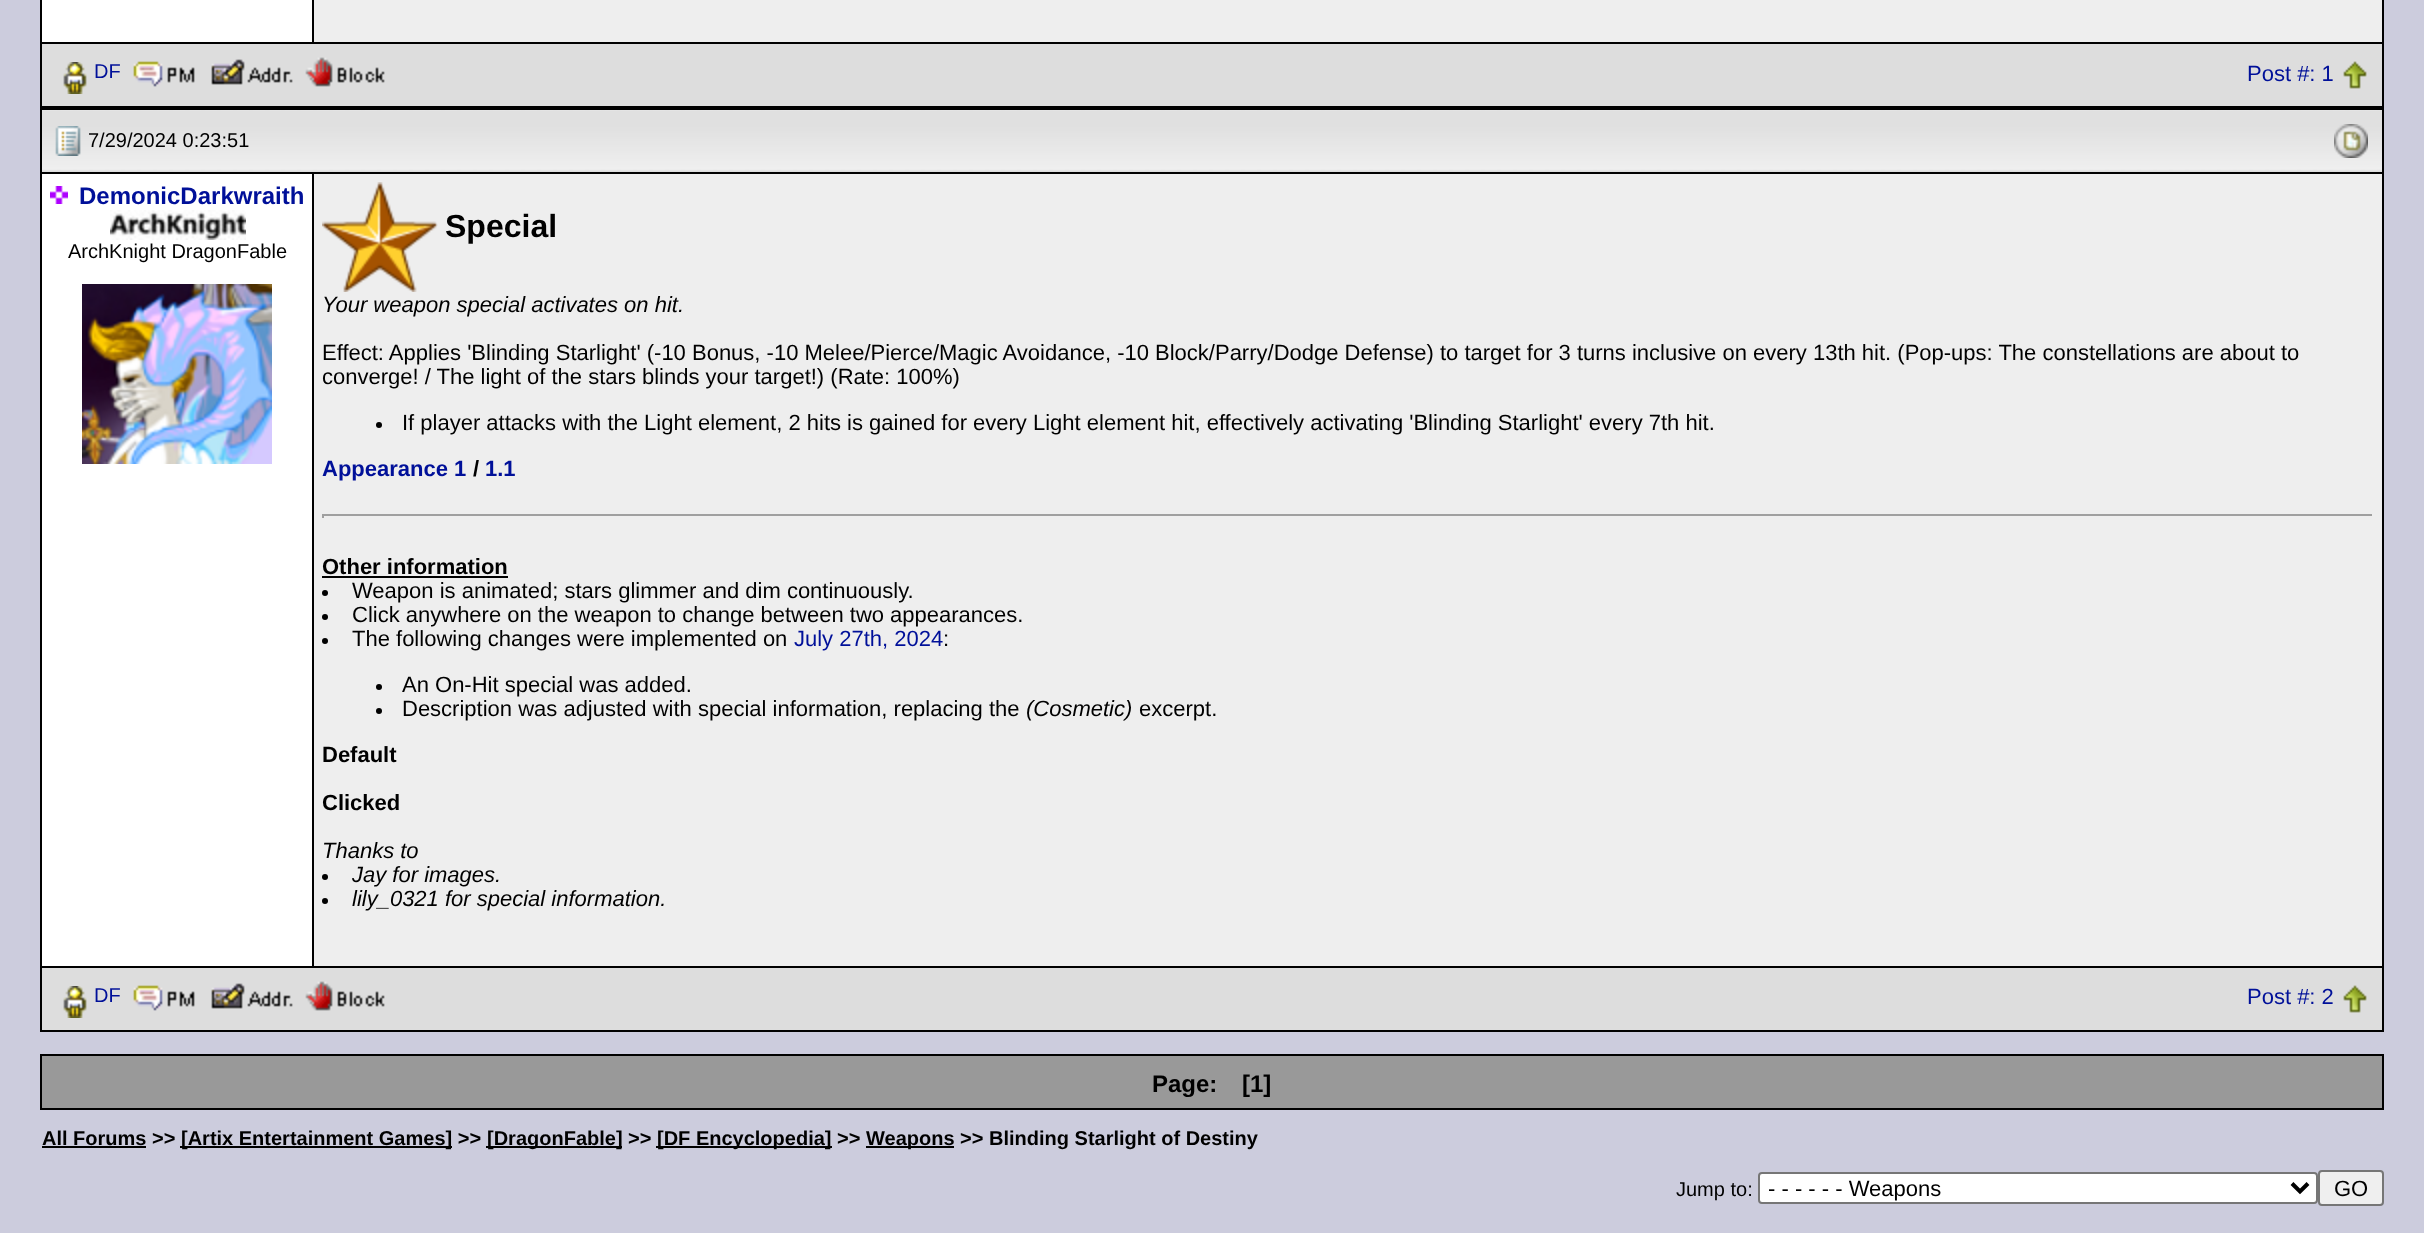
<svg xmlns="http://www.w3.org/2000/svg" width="2424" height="1233">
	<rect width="100%" height="100%" fill="#CCCCDD" />
	<rect x="40" y="0" width="2344" height="1032" fill="#000000" />
	<rect x="42" y="0" width="270" height="42" fill="#FFFFFF" />
	<rect x="314" y="0" width="2068" height="42" fill="#EEEEEE" />
	<rect x="42" y="44" width="2340" height="62" fill="#DDDDDD" />
	<image x="63" y="62" width="24" height="32" href="assets/img1.png" />
	<text x="94" y="78" font-family="Liberation Sans" font-size="20" fill="#001099">DF</text>
	<image x="133" y="61" width="62" height="26" href="assets/img2.png" />
	<image x="211" y="59" width="82" height="26" href="assets/img3.png" />
	<image x="305" y="57" width="80" height="30" href="assets/img4.png" />
	<text x="2247" y="81" font-family="Liberation Sans" font-size="22" fill="#001099">Post #: 1</text>
	<image x="2343" y="61" width="24" height="28" href="assets/img5.png" />
	<rect x="42" y="171" width="2340" height="1" fill="#DDDDDD" />
	<image x="42" y="110" width="2340" height="61" href="assets/img6.png" />
	<image x="55" y="126" width="26" height="30" href="assets/img7.png" />
	<text x="88" y="147" font-family="Liberation Sans" font-size="20" fill="#000000">7/29/2024 0:23:51</text>
	<image x="2334" y="124" width="34" height="34" href="assets/img8.png" />
	<rect x="42" y="174" width="270" height="792" fill="#FFFFFF" />
	<image x="50" y="186" width="18" height="18" href="assets/img9.png" />
	<text x="79" y="204" font-family="Liberation Sans" font-size="24" font-weight="700" fill="#001099">DemonicDarkwraith</text>
	<image x="110" y="210" width="136" height="30" href="assets/img10.png" />
	<text x="68" y="258" font-family="Liberation Sans" font-size="20" fill="#000000">ArchKnight DragonFable</text>
	<image x="82" y="284" width="190" height="180" href="assets/img11.png" />
	<rect x="314" y="174" width="2068" height="792" fill="#EEEEEE" />
	<image x="322" y="182" width="116" height="110" href="assets/img12.png" />
	<text x="445" y="237" font-family="Liberation Sans" font-size="32" font-weight="700" fill="#000000">Special</text>
	<text x="322" y="312" font-family="Liberation Sans" font-size="22" font-style="italic" fill="#000000">Your weapon special activates on hit.</text>
	<g font-family="Liberation Sans" font-size="22" fill="#000000">
		<text x="322" y="360">Effect: Applies 'Blinding Starlight' (-10 Bonus, -10 Melee/Pierce/Magic Avoidance, -10 Block/Parry/Dodge Defense) to target for 3 turns inclusive on every 13th hit. (Pop-ups: The constellations are about to</text>
		<text x="322" y="384">converge! / The light of the stars blinds your target!) (Rate: 100%)</text>
	</g>
	<circle cx="379" cy="425" r="3" fill="#000000" />
	<text x="402" y="430" font-family="Liberation Sans" font-size="22" fill="#000000">If player attacks with the Light element, 2 hits is gained for every Light element hit, effectively activating 'Blinding Starlight' every 7th hit.</text>
	<text x="322" y="476" font-family="Liberation Sans" font-size="22" font-weight="700" fill="#001099">Appearance 1</text>
	<text x="473" y="476" font-family="Liberation Sans" font-size="22" font-weight="700" fill="#000000">/</text>
	<text x="485" y="476" font-family="Liberation Sans" font-size="22" font-weight="700" fill="#001099">1.1</text>
	<rect x="322" y="514" width="2052" height="2" fill="#9F9F9F" />
	<rect x="2372" y="514" width="2" height="4" fill="#EEEEEE" />
	<rect x="322" y="514" width="2" height="4" fill="#9F9F9F" />
	<text x="322" y="574" font-family="Liberation Sans" font-size="22" font-weight="700" fill="#000000">Other information</text>
	<rect x="322" y="576" width="186" height="2" fill="#000000" />
	<circle cx="325" cy="593" r="3" fill="#000000" />
	<text x="352" y="598" font-family="Liberation Sans" font-size="22" fill="#000000">Weapon is animated; stars glimmer and dim continuously.</text>
	<circle cx="325" cy="617" r="3" fill="#000000" />
	<text x="352" y="622" font-family="Liberation Sans" font-size="22" fill="#000000">Click anywhere on the weapon to change between two appearances.</text>
	<circle cx="325" cy="641" r="3" fill="#000000" />
	<text x="352" y="646" font-family="Liberation Sans" font-size="22" fill="#000000">The following changes were implemented on</text>
	<text x="794" y="646" font-family="Liberation Sans" font-size="22" fill="#001099">July 27th, 2024</text>
	<text x="943" y="646" font-family="Liberation Sans" font-size="22" fill="#000000">:</text>
	<circle cx="379" cy="687" r="3" fill="#000000" />
	<text x="402" y="692" font-family="Liberation Sans" font-size="22" fill="#000000">An On-Hit special was added.</text>
	<circle cx="379" cy="711" r="3" fill="#000000" />
	<text x="402" y="716" font-family="Liberation Sans" font-size="22" fill="#000000">Description was adjusted with special information, replacing the</text>
	<text x="1026" y="716" font-family="Liberation Sans" font-size="22" font-style="italic" fill="#000000">(Cosmetic)</text>
	<text x="1139" y="716" font-family="Liberation Sans" font-size="22" fill="#000000">excerpt.</text>
	<g font-family="Liberation Sans" font-size="22" font-weight="700" fill="#000000">
		<text x="322" y="762">Default</text>
		<text x="322" y="810">Clicked</text>
	</g>
	<text x="322" y="858" font-family="Liberation Sans" font-size="22" font-style="italic" fill="#000000">Thanks to</text>
	<circle cx="325" cy="877" r="3" fill="#000000" />
	<text x="352" y="882" font-family="Liberation Sans" font-size="22" font-style="italic" fill="#000000">Jay for images.</text>
	<circle cx="325" cy="901" r="3" fill="#000000" />
	<text x="352" y="906" font-family="Liberation Sans" font-size="22" font-style="italic" fill="#000000">lily_0321 for special information.</text>
	<rect x="42" y="968" width="2340" height="62" fill="#DDDDDD" />
	<image x="63" y="986" width="24" height="32" href="assets/img1.png" />
	<text x="94" y="1002" font-family="Liberation Sans" font-size="20" fill="#001099">DF</text>
	<image x="133" y="985" width="62" height="26" href="assets/img2.png" />
	<image x="211" y="983" width="82" height="26" href="assets/img3.png" />
	<image x="305" y="981" width="80" height="30" href="assets/img4.png" />
	<text x="2247" y="1004" font-family="Liberation Sans" font-size="22" fill="#001099">Post #: 2</text>
	<image x="2343" y="985" width="24" height="28" href="assets/img5.png" />
	<rect x="40" y="1054" width="2344" height="56" fill="#000000" />
	<rect x="42" y="1056" width="2340" height="52" fill="#999999" />
	<g font-family="Liberation Sans" font-size="24" font-weight="700" fill="#000000">
		<text x="1152" y="1092">Page:</text>
		<text x="1242" y="1092">[1]</text>
	</g>
	<text x="42" y="1145" font-family="Liberation Sans" font-size="20" font-weight="700" fill="#000000">All Forums &gt;&gt;</text>
	<rect x="42" y="1146" width="104" height="2" fill="#000000" />
	<rect x="180" y="1146" width="272" height="2" fill="#000000" />
	<text x="181" y="1145" font-family="Liberation Sans" font-size="20" font-weight="700" fill="#000000">[Artix Entertainment Games] &gt;&gt;</text>
	<rect x="486" y="1146" width="136" height="2" fill="#000000" />
	<text x="487" y="1145" font-family="Liberation Sans" font-size="20" font-weight="700" fill="#000000">[DragonFable] &gt;&gt;</text>
	<rect x="656" y="1146" width="176" height="2" fill="#000000" />
	<text x="657" y="1145" font-family="Liberation Sans" font-size="20" font-weight="700" fill="#000000">[DF Encyclopedia] &gt;&gt;</text>
	<rect x="866" y="1146" width="88" height="2" fill="#000000" />
	<text x="866" y="1145" font-family="Liberation Sans" font-size="20" font-weight="700" fill="#000000">Weapons &gt;&gt; Blinding Starlight of Destiny</text>
	<text x="1676" y="1196" font-family="Liberation Sans" font-size="20" fill="#000000">Jump to:</text>
	<rect x="1759" y="1173" width="558" height="30" rx="3" fill="#FFFFFF" stroke="#767676" stroke-width="2" />
	<path d="M2292 1183.5L2300 1191.5L2308 1183.5" fill="none" stroke="#000000" stroke-width="4" />
	<text x="1768" y="1196" font-family="Liberation Sans" font-size="22" fill="#000000">- - - - - - Weapons</text>
	<rect x="2319" y="1171" width="64" height="34" rx="3" fill="#EFEFEF" stroke="#767676" stroke-width="2" />
	<text x="2334" y="1196" font-family="Liberation Sans" font-size="22" fill="#000000">GO</text>
</svg>
